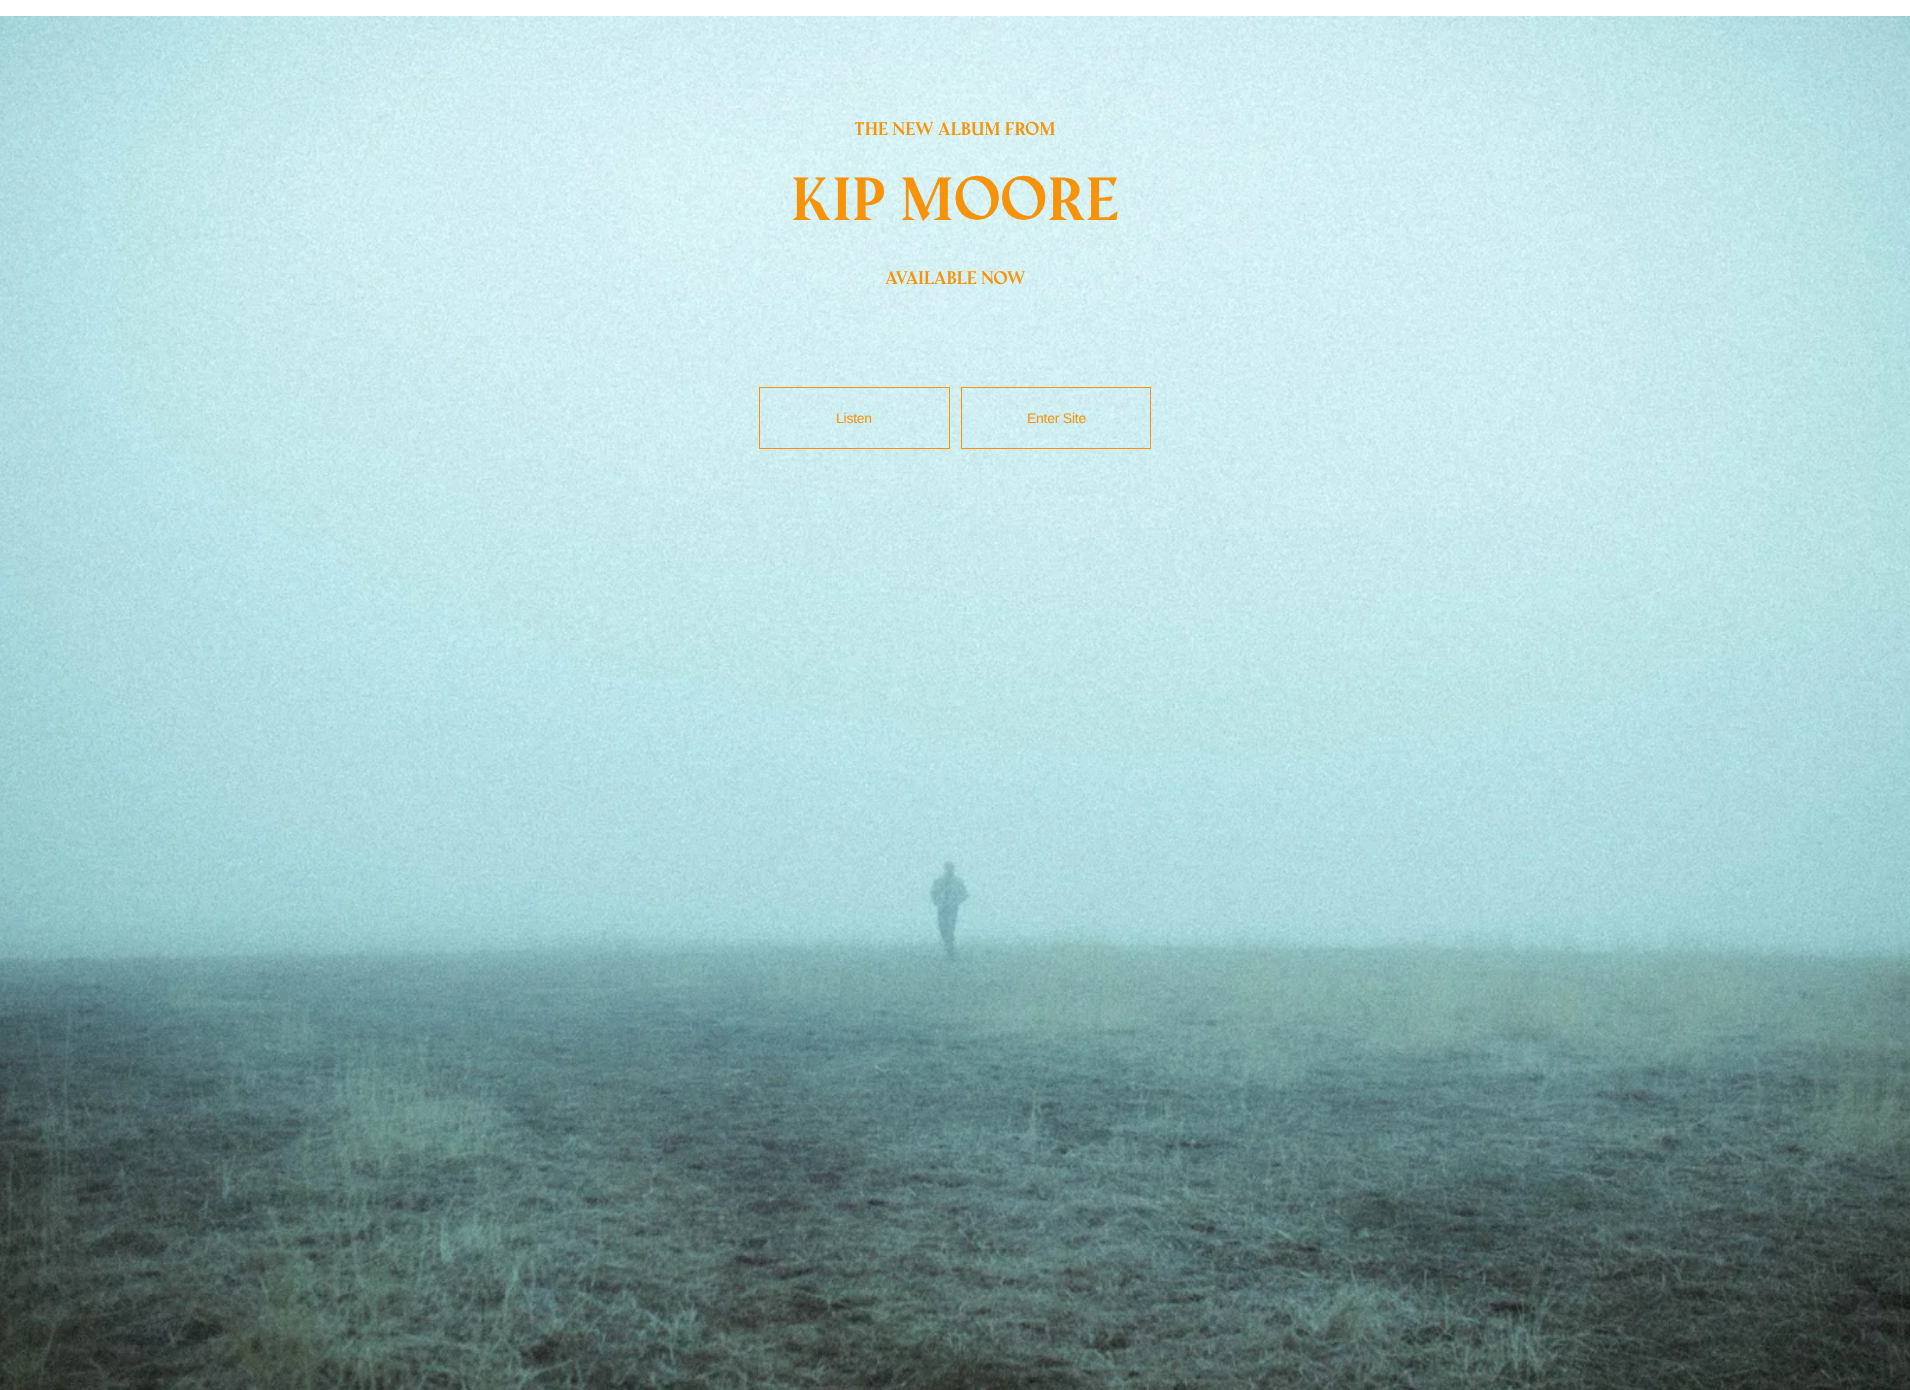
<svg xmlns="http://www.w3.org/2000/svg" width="1910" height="1390">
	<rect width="100%" height="100%" fill="#FFFFFF" />
	<image x="0" y="16" width="1910" height="1374" href="assets/img1.png" />
	<text x="854" y="135" font-family="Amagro" font-size="16.75" font-weight="700" fill="#F79308">The new album from</text>
	<text x="791" y="220" font-family="Amagro" font-size="56" font-weight="700" fill="#F79308">Kip Moore</text>
	<text x="885" y="284" font-family="Amagro" font-size="16.75" font-weight="700" fill="#F79308">Available NOW</text>
	<rect x="759.5" y="387.5" width="190" height="61" fill="none" stroke="#F79308" />
	<text x="836" y="423" font-family="Liberation Sans" font-size="14" letter-spacing="-0.25" fill="#F79308">Listen</text>
	<rect x="961.5" y="387.5" width="189" height="61" fill="none" stroke="#F79308" />
	<text x="1027" y="423" font-family="Liberation Sans" font-size="14" letter-spacing="-0.25" fill="#F79308">Enter Site</text>
</svg>
